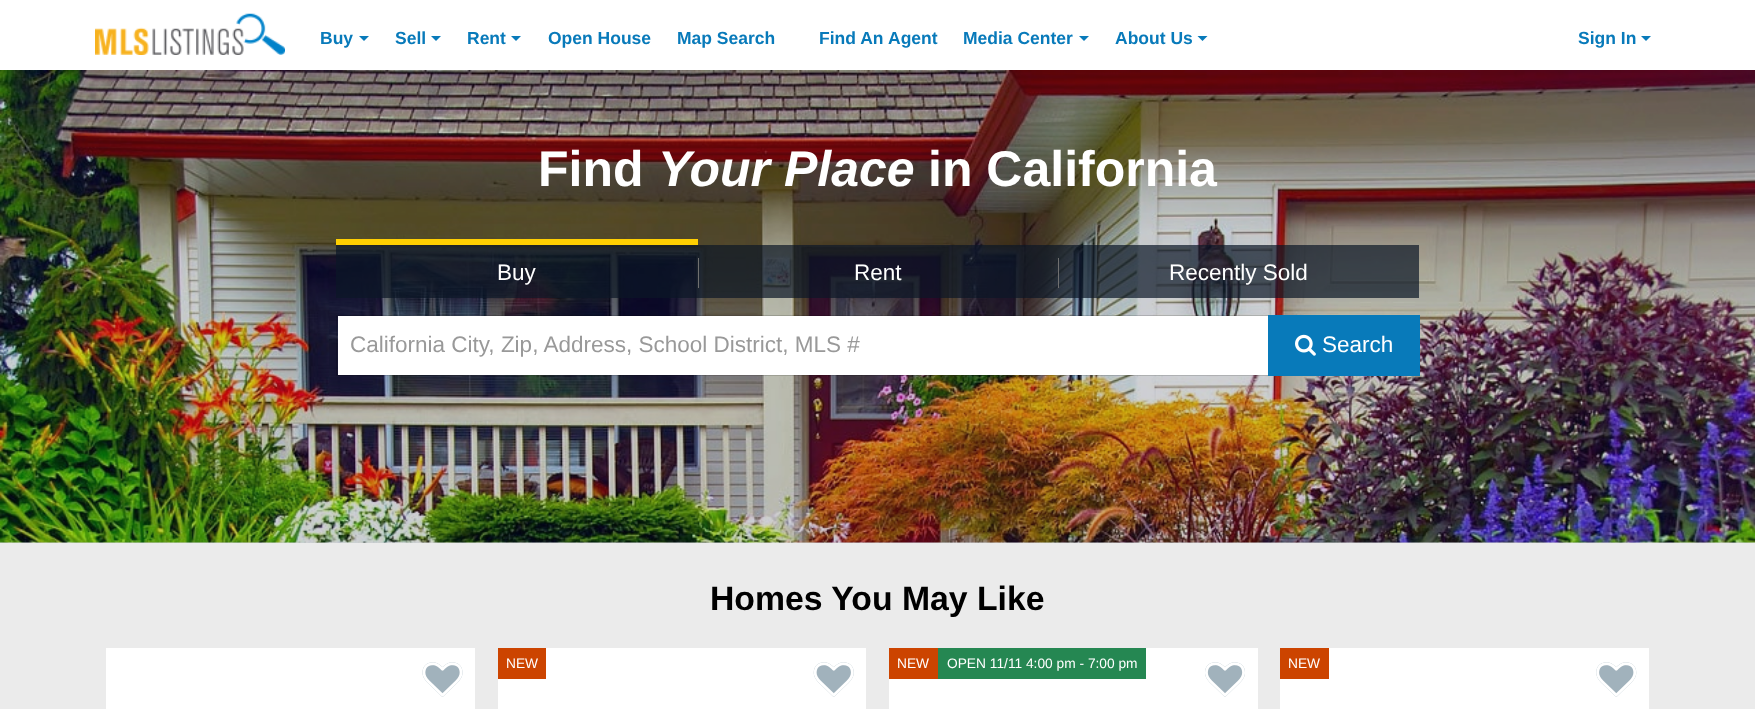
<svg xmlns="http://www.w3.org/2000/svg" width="1755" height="709">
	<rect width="100%" height="100%" fill="#FFFFFF" />
	<rect x="0" y="542" width="1755" height="1" fill="#CED1D4" />
	<image x="95" y="13" width="190" height="42" href="assets/img1.png" />
	<text x="320" y="44" font-family="Liberation Sans" font-size="17.5" font-weight="700" fill="#087ABA">Buy</text>
	<path d="M359 36H369L364 41Z" fill="#087ABA" />
	<text x="395" y="44" font-family="Liberation Sans" font-size="17.5" font-weight="700" fill="#087ABA">Sell</text>
	<path d="M431 36H441L436 41Z" fill="#087ABA" />
	<text x="467" y="44" font-family="Liberation Sans" font-size="17.5" font-weight="700" fill="#087ABA">Rent</text>
	<path d="M511 36H521L516 41Z" fill="#087ABA" />
	<g font-family="Liberation Sans" font-size="17.5" font-weight="700" fill="#087ABA">
		<text x="548" y="44">Open House</text>
		<text x="677" y="44">Map Search</text>
		<text x="819" y="44">Find An</text>
		<text x="888" y="44">Agent</text>
		<text x="963" y="44">Media Center</text>
	</g>
	<path d="M1079 36H1089L1084 41Z" fill="#087ABA" />
	<text x="1115" y="44" font-family="Liberation Sans" font-size="17.5" font-weight="700" fill="#087ABA">About Us</text>
	<path d="M1197.5 36H1207.5L1202.5 41Z" fill="#087ABA" />
	<text x="1578" y="44" font-family="Liberation Sans" font-size="17.5" font-weight="700" fill="#087ABA">Sign In</text>
	<path d="M1641 36H1651L1646 41Z" fill="#087ABA" />
	<image x="0" y="70" width="1755" height="473" href="assets/img2.png" />
	<text x="538" y="186" font-family="Liberation Sans" font-size="50" font-weight="700" fill="#FFFFFF">Find</text>
	<text x="658" y="186" font-family="Liberation Sans" font-size="50" font-weight="700" font-style="italic" fill="#FFFFFF">Your Place</text>
	<text x="928" y="186" font-family="Liberation Sans" font-size="50" font-weight="700" fill="#FFFFFF">in California</text>
	<rect x="336" y="245" width="362" height="53" fill="#0C1726" fill-opacity="0.7" />
	<rect x="336" y="239" width="362" height="6" fill="#FFCF01" />
	<text x="497" y="280" font-family="Liberation Sans" font-size="22.5" fill="#FFFFFF">Buy</text>
	<rect x="698" y="245" width="360" height="53" fill="#0C1726" fill-opacity="0.7" />
	<rect x="698" y="258" width="1" height="30" fill="#707070" />
	<text x="854" y="280" font-family="Liberation Sans" font-size="22.5" fill="#FFFFFF">Rent</text>
	<rect x="1058" y="245" width="361" height="53" fill="#0C1726" fill-opacity="0.7" />
	<rect x="1058" y="258" width="1" height="30" fill="#707070" />
	<text x="1169" y="280" font-family="Liberation Sans" font-size="22.5" fill="#FFFFFF">Recently Sold</text>
	<rect x="338" y="316" width="930" height="59" fill="#FFFFFF" />
	<rect x="336.5" y="315.5" width="932" height="60" fill="none" stroke="#000000" stroke-opacity="0.15" />
	<text x="350" y="352" font-family="Liberation Sans" font-size="22.5" fill="#999999">California City, Zip, Address, School District, MLS #</text>
	<rect x="1268" y="315" width="152" height="61" fill="#087ABA" />
	<image x="1295" y="334" width="21" height="22" href="assets/img3.png" />
	<text x="1322" y="352" font-family="Liberation Sans" font-size="22.5" fill="#FFFFFF">Search</text>
	<rect x="0" y="543" width="1755" height="166" fill="#EBEBEB" />
	<text x="710" y="610" font-family="Liberation Sans" font-size="33.75" font-weight="700" fill="#000000">Homes You May Like</text>
	<rect x="106" y="648" width="369" height="61" fill="#FFFFFF" />
	<image x="422" y="662" width="41" height="35" href="assets/img4.png" />
	<image x="422" y="662" width="41" height="35" href="assets/img5.png" />
	<rect x="498" y="648" width="368" height="61" fill="#FFFFFF" />
	<rect x="498" y="648" width="48" height="31" fill="#CC4400" />
	<text x="506" y="668" font-family="Liberation Sans" font-size="13.75" fill="#FFFFFF">NEW</text>
	<image x="813" y="662" width="41" height="35" href="assets/img6.png" />
	<image x="813" y="662" width="41" height="35" href="assets/img7.png" />
	<rect x="889" y="648" width="369" height="61" fill="#FFFFFF" />
	<rect x="889" y="648" width="49" height="31" fill="#CC4400" />
	<text x="897" y="668" font-family="Liberation Sans" font-size="13.75" fill="#FFFFFF">NEW</text>
	<rect x="938" y="648" width="208" height="31" fill="#258752" />
	<text x="947" y="668" font-family="Liberation Sans" font-size="13.75" fill="#FFFFFF">OPEN 11/11 4:00 pm - 7:00 pm</text>
	<image x="1205" y="662" width="40" height="35" href="assets/img8.png" />
	<image x="1205" y="662" width="40" height="35" href="assets/img9.png" />
	<rect x="1280" y="648" width="369" height="61" fill="#FFFFFF" />
	<rect x="1280" y="648" width="49" height="31" fill="#CC4400" />
	<text x="1288" y="668" font-family="Liberation Sans" font-size="13.75" fill="#FFFFFF">NEW</text>
	<image x="1596" y="662" width="41" height="35" href="assets/img10.png" />
	<image x="1596" y="662" width="41" height="35" href="assets/img11.png" />
</svg>
